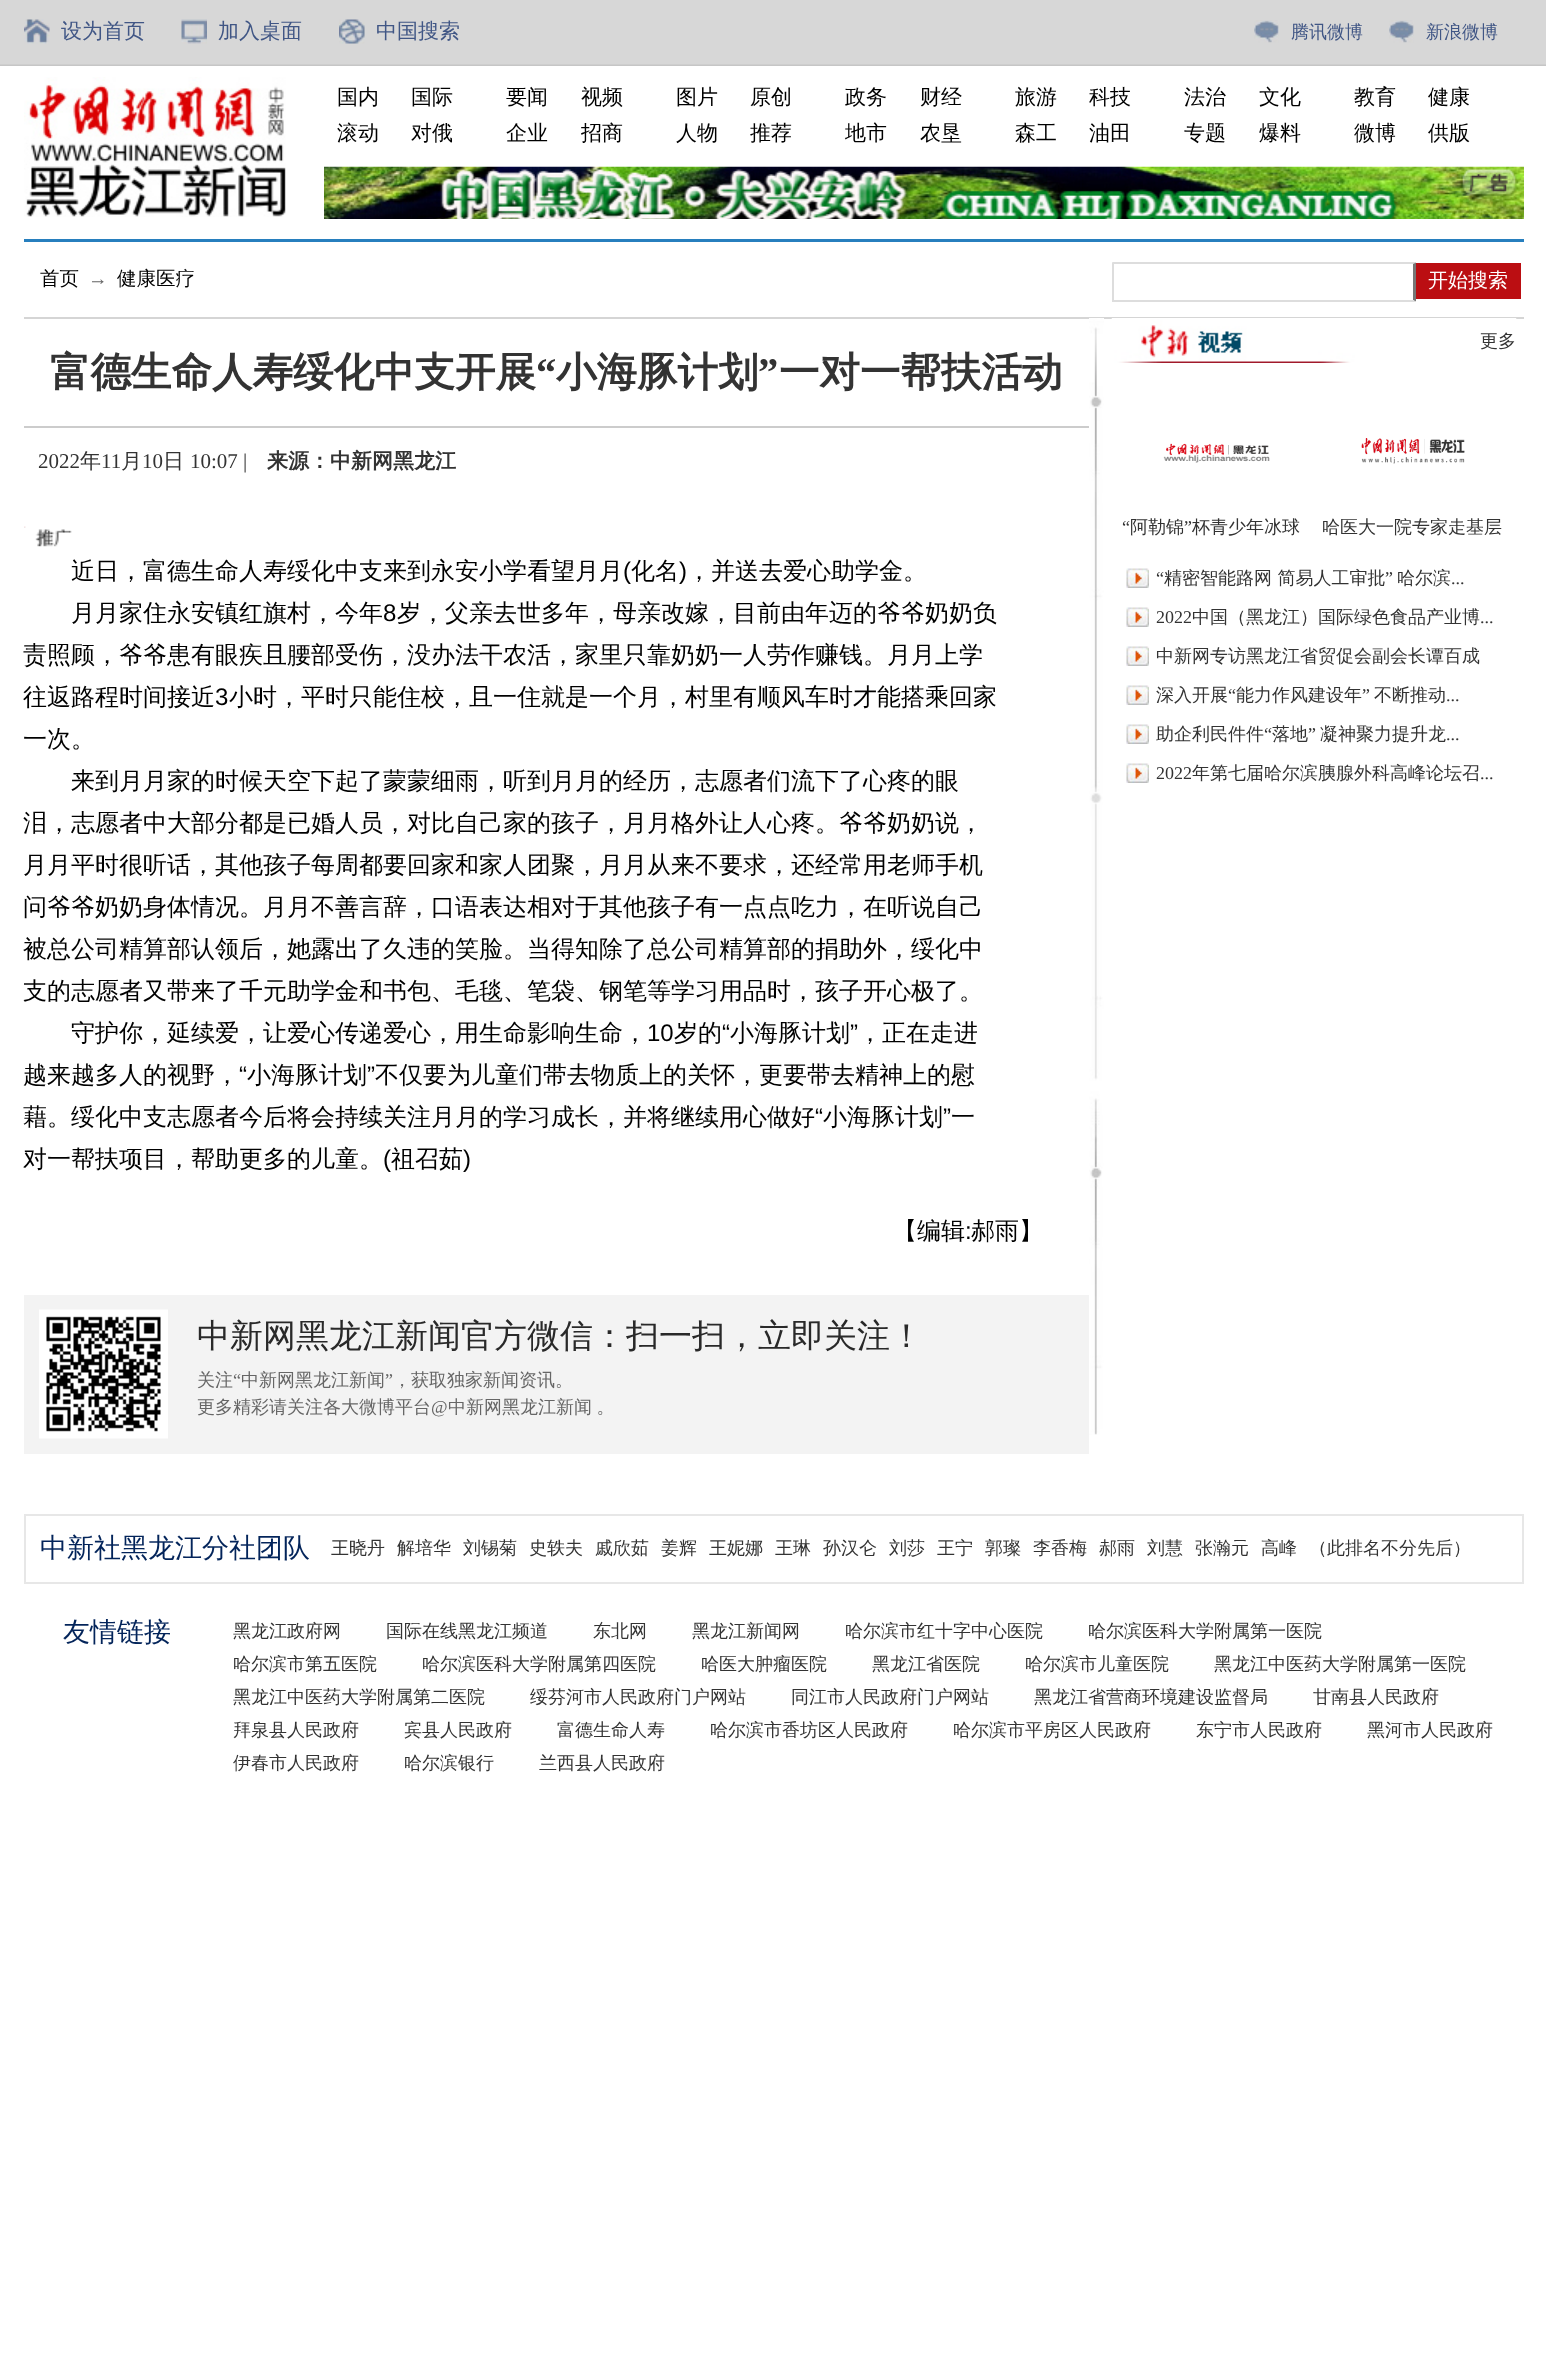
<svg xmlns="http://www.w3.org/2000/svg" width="1546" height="2365">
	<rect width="100%" height="100%" fill="#FFFFFF" />
	<image x="0" y="0" width="1546" height="66" href="assets/img1.png" />
	<image x="24" y="19" width="26" height="25" href="assets/img2.png" />
	<text x="61" y="38" font-family="WenQuanYi Zen Hei" font-size="21" font-weight="500" fill="#405685">设为首页</text>
	<image x="181" y="19" width="26" height="25" href="assets/img3.png" />
	<text x="218" y="38" font-family="WenQuanYi Zen Hei" font-size="21" font-weight="500" fill="#405685">加入桌面</text>
	<image x="339" y="19" width="26" height="25" href="assets/img4.png" />
	<text x="376" y="38" font-family="WenQuanYi Zen Hei" font-size="21" font-weight="500" fill="#405685">中国搜索</text>
	<image x="1254" y="20" width="25" height="23" href="assets/img5.png" />
	<text x="1291" y="38" font-family="WenQuanYi Zen Hei" font-size="18" font-weight="500" fill="#405685">腾讯微博</text>
	<image x="1389" y="20" width="25" height="23" href="assets/img5.png" />
	<text x="1426" y="38" font-family="WenQuanYi Zen Hei" font-size="18" font-weight="500" fill="#405685">新浪微博</text>
	<image x="24" y="77" width="262" height="140" href="assets/img6.png" />
	<g font-family="WenQuanYi Zen Hei" font-size="21" font-weight="500" fill="#000000">
		<text x="337" y="104">国内</text>
		<text x="411" y="104">国际</text>
		<text x="337" y="140">滚动</text>
		<text x="411" y="140">对俄</text>
		<text x="506" y="104">要闻</text>
		<text x="581" y="104">视频</text>
		<text x="506" y="140">企业</text>
		<text x="581" y="140">招商</text>
		<text x="676" y="104">图片</text>
		<text x="750" y="104">原创</text>
		<text x="676" y="140">人物</text>
		<text x="750" y="140">推荐</text>
		<text x="845" y="104">政务</text>
		<text x="920" y="104">财经</text>
		<text x="845" y="140">地市</text>
		<text x="920" y="140">农垦</text>
		<text x="1015" y="104">旅游</text>
		<text x="1089" y="104">科技</text>
		<text x="1015" y="140">森工</text>
		<text x="1089" y="140">油田</text>
		<text x="1184" y="104">法治</text>
		<text x="1259" y="104">文化</text>
		<text x="1184" y="140">专题</text>
		<text x="1259" y="140">爆料</text>
		<text x="1354" y="104">教育</text>
		<text x="1428" y="104">健康</text>
		<text x="1354" y="140">微博</text>
		<text x="1428" y="140">供版</text>
	</g>
	<image x="324" y="166" width="1200" height="53" href="assets/img7.png" />
	<rect x="24" y="239" width="1500" height="3" fill="#277FBE" />
	<rect x="24" y="317" width="1500" height="2" fill="#D5D5D5" />
	<text x="40" y="285" font-family="WenQuanYi Zen Hei" font-size="19.5" font-weight="500" fill="#000000">首页</text>
	<text x="88" y="285" font-family="Liberation Serif" font-size="19.5" fill="#666666">→</text>
	<text x="117" y="285" font-family="WenQuanYi Zen Hei" font-size="19.5" font-weight="500" fill="#000000">健康医疗</text>
	<path d="M1112 262H1416L1413 264H1113Z" fill="#DDDDDD" />
	<path d="M1416 262.5V301.5L1413 300V264Z" fill="#767676" />
	<path d="M1416 302H1112L1113 300H1413Z" fill="#DDDDDD" />
	<rect x="1112" y="263" width="2" height="39" fill="#DDDDDD" />
	<rect x="1416" y="263" width="105" height="36" fill="#BB0E12" />
	<text x="1428" y="287" font-family="WenQuanYi Zen Hei" font-size="20" font-weight="500" fill="#FFFFFF">开始搜索</text>
	<image x="1089" y="318" width="15" height="1117" href="assets/img8.png" />
	<rect x="24" y="426" width="1065" height="2" fill="#CCCCCC" />
	<text x="50" y="386" font-family="WenQuanYi Zen Hei" font-size="40.5" font-weight="700" fill="#333333">富德生命人寿绥化中支开展</text>
	<text x="536" y="386" font-family="Liberation Serif" font-size="40.5" font-weight="700" fill="#333333">“</text>
	<text x="556" y="386" font-family="WenQuanYi Zen Hei" font-size="40.5" font-weight="700" fill="#333333">小海豚计划</text>
	<text x="758" y="386" font-family="Liberation Serif" font-size="40.5" font-weight="700" fill="#333333">”</text>
	<text x="779" y="386" font-family="WenQuanYi Zen Hei" font-size="40.5" font-weight="700" fill="#333333">一对一帮扶活动</text>
	<text x="38" y="468" font-family="Liberation Serif" font-size="21" fill="#333333">2022</text>
	<text x="80" y="468" font-family="WenQuanYi Zen Hei" font-size="21" font-weight="500" fill="#333333">年</text>
	<text x="101" y="468" font-family="Liberation Serif" font-size="21" fill="#333333">11</text>
	<text x="121" y="468" font-family="WenQuanYi Zen Hei" font-size="21" font-weight="500" fill="#333333">月</text>
	<text x="142" y="468" font-family="Liberation Serif" font-size="21" fill="#333333">10</text>
	<text x="163" y="468" font-family="WenQuanYi Zen Hei" font-size="21" font-weight="500" fill="#333333">日</text>
	<text x="190" y="468" font-family="Liberation Serif" font-size="21" fill="#333333">10:07 |</text>
	<text x="267" y="468" font-family="WenQuanYi Zen Hei" font-size="21" font-weight="700" fill="#333333">来源：中新网黑龙江</text>
	<image x="24" y="526" width="2" height="2" href="assets/img9.png" />
	<image x="35" y="529" width="37" height="18" href="assets/img10.png" />
	<text x="71" y="579" font-family="WenQuanYi Zen Hei" font-size="24" font-weight="500" fill="#000000">近日，富德生命人寿绥化中支来到永安小学看望月月</text>
	<text x="623" y="579" font-family="Liberation Sans" font-size="24" fill="#000000">(</text>
	<text x="631" y="579" font-family="WenQuanYi Zen Hei" font-size="24" font-weight="500" fill="#000000">化名</text>
	<text x="679" y="579" font-family="Liberation Sans" font-size="24" fill="#000000">)</text>
	<g font-family="WenQuanYi Zen Hei" font-size="24" font-weight="500" fill="#000000">
		<text x="687" y="579">，并送去爱心助学金。</text>
		<text x="71" y="621">月月家住永安镇红旗村，今年</text>
	</g>
	<text x="383" y="621" font-family="Liberation Sans" font-size="24" fill="#000000">8</text>
	<g font-family="WenQuanYi Zen Hei" font-size="24" font-weight="500" fill="#000000">
		<text x="397" y="621">岁，父亲去世多年，母亲改嫁，目前由年迈的爷爷奶奶负</text>
		<text x="23" y="663">责照顾，爷爷患有眼疾且腰部受伤，没办法干农活，家里只靠奶奶一人劳作赚钱。月月上学</text>
		<text x="23" y="705">往返路程时间接近</text>
	</g>
	<text x="215" y="705" font-family="Liberation Sans" font-size="24" fill="#000000">3</text>
	<g font-family="WenQuanYi Zen Hei" font-size="24" font-weight="500" fill="#000000">
		<text x="229" y="705">小时，平时只能住校，且一住就是一个月，村里有顺风车时才能搭乘回家</text>
		<text x="23" y="747">一次。</text>
		<text x="71" y="789">来到月月家的时候天空下起了蒙蒙细雨，听到月月的经历，志愿者们流下了心疼的眼</text>
		<text x="23" y="831">泪，志愿者中大部分都是已婚人员，对比自己家的孩子，月月格外让人心疼。爷爷奶奶说，</text>
		<text x="23" y="873">月月平时很听话，其他孩子每周都要回家和家人团聚，月月从来不要求，还经常用老师手机</text>
		<text x="23" y="915">问爷爷奶奶身体情况。月月不善言辞，口语表达相对于其他孩子有一点点吃力，在听说自己</text>
		<text x="23" y="957">被总公司精算部认领后，她露出了久违的笑脸。当得知除了总公司精算部的捐助外，绥化中</text>
		<text x="23" y="999">支的志愿者又带来了千元助学金和书包、毛毯、笔袋、钢笔等学习用品时，孩子开心极了。</text>
		<text x="71" y="1041">守护你，延续爱，让爱心传递爱心，用生命影响生命，</text>
	</g>
	<text x="647" y="1041" font-family="Liberation Sans" font-size="24" fill="#000000">10</text>
	<text x="674" y="1041" font-family="WenQuanYi Zen Hei" font-size="24" font-weight="500" fill="#000000">岁的</text>
	<text x="722" y="1041" font-family="Liberation Sans" font-size="24" fill="#000000">“</text>
	<text x="730" y="1041" font-family="WenQuanYi Zen Hei" font-size="24" font-weight="500" fill="#000000">小海豚计划</text>
	<text x="850" y="1041" font-family="Liberation Sans" font-size="24" fill="#000000">”</text>
	<g font-family="WenQuanYi Zen Hei" font-size="24" font-weight="500" fill="#000000">
		<text x="858" y="1041">，正在走进</text>
		<text x="23" y="1083">越来越多人的视野，</text>
	</g>
	<text x="239" y="1083" font-family="Liberation Sans" font-size="24" fill="#000000">“</text>
	<text x="247" y="1083" font-family="WenQuanYi Zen Hei" font-size="24" font-weight="500" fill="#000000">小海豚计划</text>
	<text x="367" y="1083" font-family="Liberation Sans" font-size="24" fill="#000000">”</text>
	<g font-family="WenQuanYi Zen Hei" font-size="24" font-weight="500" fill="#000000">
		<text x="375" y="1083">不仅要为儿童们带去物质上的关怀，更要带去精神上的慰</text>
		<text x="23" y="1125">藉。绥化中支志愿者今后将会持续关注月月的学习成长，并将继续用心做好</text>
	</g>
	<text x="815" y="1125" font-family="Liberation Sans" font-size="24" fill="#000000">“</text>
	<text x="823" y="1125" font-family="WenQuanYi Zen Hei" font-size="24" font-weight="500" fill="#000000">小海豚计划</text>
	<text x="943" y="1125" font-family="Liberation Sans" font-size="24" fill="#000000">”</text>
	<g font-family="WenQuanYi Zen Hei" font-size="24" font-weight="500" fill="#000000">
		<text x="951" y="1125">一</text>
		<text x="23" y="1167">对一帮扶项目，帮助更多的儿童。</text>
	</g>
	<text x="383" y="1167" font-family="Liberation Sans" font-size="24" fill="#000000">(</text>
	<text x="391" y="1167" font-family="WenQuanYi Zen Hei" font-size="24" font-weight="500" fill="#000000">祖召茹</text>
	<text x="463" y="1167" font-family="Liberation Sans" font-size="24" fill="#000000">)</text>
	<text x="893" y="1239" font-family="WenQuanYi Zen Hei" font-size="24" font-weight="500" fill="#000000">【编辑</text>
	<text x="965" y="1239" font-family="Liberation Sans" font-size="24" fill="#000000">:</text>
	<text x="971" y="1239" font-family="WenQuanYi Zen Hei" font-size="24" font-weight="500" fill="#000000">郝雨】</text>
	<rect x="24" y="1295" width="1065" height="159" fill="#F3F3F3" />
	<image x="39" y="1309" width="129" height="130" href="assets/img11.png" />
	<text x="197" y="1347" font-family="WenQuanYi Zen Hei" font-size="33" font-weight="500" fill="#292929">中新网黑龙江新闻官方微信：扫一扫，立即关注！</text>
	<text x="197" y="1386" font-family="WenQuanYi Zen Hei" font-size="18" font-weight="500" fill="#666666">关注</text>
	<text x="233" y="1386" font-family="Liberation Serif" font-size="18" fill="#666666">“</text>
	<text x="241" y="1386" font-family="WenQuanYi Zen Hei" font-size="18" font-weight="500" fill="#666666">中新网黑龙江新闻</text>
	<text x="385" y="1386" font-family="Liberation Serif" font-size="18" fill="#666666">”</text>
	<g font-family="WenQuanYi Zen Hei" font-size="18" font-weight="500" fill="#666666">
		<text x="393" y="1386">，获取独家新闻资讯。</text>
		<text x="197" y="1413">更多精彩请关注各大微博平台</text>
	</g>
	<text x="431" y="1413" font-family="Liberation Serif" font-size="18" fill="#666666">@</text>
	<text x="448" y="1413" word-spacing="-1" font-family="WenQuanYi Zen Hei" font-size="18" font-weight="500" fill="#666666">中新网黑龙江新闻 。</text>
	<image x="1111" y="318" width="406" height="45" href="assets/img12.png" />
	<text x="1480" y="347" font-family="WenQuanYi Zen Hei" font-size="18" font-weight="500" fill="#333333">更多</text>
	<image x="1163" y="443" width="107" height="20" href="assets/img13.png" />
	<text x="1122" y="533" font-family="Liberation Serif" font-size="18" fill="#333333">“</text>
	<text x="1130" y="533" font-family="WenQuanYi Zen Hei" font-size="18" font-weight="500" fill="#333333">阿勒锦</text>
	<text x="1184" y="533" font-family="Liberation Serif" font-size="18" fill="#333333">”</text>
	<text x="1192" y="533" font-family="WenQuanYi Zen Hei" font-size="18" font-weight="500" fill="#333333">杯青少年冰球</text>
	<image x="1361" y="438" width="104" height="26" href="assets/img14.png" />
	<text x="1322" y="533" font-family="WenQuanYi Zen Hei" font-size="18" font-weight="500" fill="#333333">哈医大一院专家走基层</text>
	<image x="1126" y="568" width="23" height="20" href="assets/img15.png" />
	<text x="1156" y="584" font-family="Liberation Serif" font-size="18" fill="#333333">“</text>
	<text x="1164" y="584" font-family="WenQuanYi Zen Hei" font-size="18" font-weight="500" fill="#333333">精密智能路网 简易人工审批</text>
	<text x="1385" y="584" font-family="Liberation Serif" font-size="18" fill="#333333">”</text>
	<text x="1397" y="584" font-family="WenQuanYi Zen Hei" font-size="18" font-weight="500" fill="#333333">哈尔滨</text>
	<text x="1451" y="584" font-family="Liberation Serif" font-size="18" fill="#333333">...</text>
	<image x="1126" y="607" width="23" height="20" href="assets/img15.png" />
	<text x="1156" y="623" font-family="Liberation Serif" font-size="18" fill="#333333">2022</text>
	<text x="1192" y="623" font-family="WenQuanYi Zen Hei" font-size="18" font-weight="500" fill="#333333">中国（黑龙江）国际绿色食品产业博</text>
	<text x="1480" y="623" font-family="Liberation Serif" font-size="18" fill="#333333">...</text>
	<image x="1126" y="646" width="23" height="20" href="assets/img15.png" />
	<text x="1156" y="662" font-family="WenQuanYi Zen Hei" font-size="18" font-weight="500" fill="#333333">中新网专访黑龙江省贸促会副会长谭百成</text>
	<image x="1126" y="685" width="23" height="20" href="assets/img15.png" />
	<text x="1156" y="701" font-family="WenQuanYi Zen Hei" font-size="18" font-weight="500" fill="#333333">深入开展</text>
	<text x="1228" y="701" font-family="Liberation Serif" font-size="18" fill="#333333">“</text>
	<text x="1236" y="701" font-family="WenQuanYi Zen Hei" font-size="18" font-weight="500" fill="#333333">能力作风建设年</text>
	<text x="1362" y="701" font-family="Liberation Serif" font-size="18" fill="#333333">”</text>
	<text x="1374" y="701" font-family="WenQuanYi Zen Hei" font-size="18" font-weight="500" fill="#333333">不断推动</text>
	<text x="1446" y="701" font-family="Liberation Serif" font-size="18" fill="#333333">...</text>
	<image x="1126" y="724" width="23" height="20" href="assets/img15.png" />
	<text x="1156" y="740" font-family="WenQuanYi Zen Hei" font-size="18" font-weight="500" fill="#333333">助企利民件件</text>
	<text x="1264" y="740" font-family="Liberation Serif" font-size="18" fill="#333333">“</text>
	<text x="1272" y="740" font-family="WenQuanYi Zen Hei" font-size="18" font-weight="500" fill="#333333">落地</text>
	<text x="1308" y="740" font-family="Liberation Serif" font-size="18" fill="#333333">”</text>
	<text x="1320" y="740" font-family="WenQuanYi Zen Hei" font-size="18" font-weight="500" fill="#333333">凝神聚力提升龙</text>
	<text x="1446" y="740" font-family="Liberation Serif" font-size="18" fill="#333333">...</text>
	<image x="1126" y="763" width="23" height="20" href="assets/img15.png" />
	<text x="1156" y="779" font-family="Liberation Serif" font-size="18" fill="#333333">2022</text>
	<text x="1192" y="779" font-family="WenQuanYi Zen Hei" font-size="18" font-weight="500" fill="#333333">年第七届哈尔滨胰腺外科高峰论坛召</text>
	<text x="1480" y="779" font-family="Liberation Serif" font-size="18" fill="#333333">...</text>
	<rect x="25" y="1515" width="1498" height="68" fill="none" stroke="#E7E7E7" stroke-width="2" />
	<text x="40" y="1557" font-family="WenQuanYi Zen Hei" font-size="27" font-weight="500" fill="#03245A">中新社黑龙江分社团队</text>
	<g font-family="WenQuanYi Zen Hei" font-size="18" font-weight="500" fill="#333333">
		<text x="331" y="1554">王晓丹</text>
		<text x="397" y="1554">解培华</text>
		<text x="463" y="1554">刘锡菊</text>
		<text x="529" y="1554">史轶夫</text>
		<text x="595" y="1554">戚欣茹</text>
		<text x="661" y="1554">姜辉</text>
		<text x="709" y="1554">王妮娜</text>
		<text x="775" y="1554">王琳</text>
		<text x="823" y="1554">孙汉仑</text>
		<text x="889" y="1554">刘莎</text>
		<text x="937" y="1554">王宁</text>
		<text x="985" y="1554">郭璨</text>
		<text x="1033" y="1554">李香梅</text>
		<text x="1099" y="1554">郝雨</text>
		<text x="1147" y="1554">刘慧</text>
		<text x="1195" y="1554">张瀚元</text>
		<text x="1261" y="1554">高峰</text>
		<text x="1309" y="1554">（此排名不分先后）</text>
	</g>
	<text x="63" y="1641" font-family="WenQuanYi Zen Hei" font-size="27" font-weight="500" fill="#03245A">友情链接</text>
	<g font-family="WenQuanYi Zen Hei" font-size="18" font-weight="500" fill="#333333">
		<text x="233" y="1637">黑龙江政府网</text>
		<text x="386" y="1637">国际在线黑龙江频道</text>
		<text x="593" y="1637">东北网</text>
		<text x="692" y="1637">黑龙江新闻网</text>
		<text x="845" y="1637">哈尔滨市红十字中心医院</text>
		<text x="1088" y="1637">哈尔滨医科大学附属第一医院</text>
		<text x="233" y="1670">哈尔滨市第五医院</text>
		<text x="422" y="1670">哈尔滨医科大学附属第四医院</text>
		<text x="701" y="1670">哈医大肿瘤医院</text>
		<text x="872" y="1670">黑龙江省医院</text>
		<text x="1025" y="1670">哈尔滨市儿童医院</text>
		<text x="1214" y="1670">黑龙江中医药大学附属第一医院</text>
		<text x="233" y="1703">黑龙江中医药大学附属第二医院</text>
		<text x="530" y="1703">绥芬河市人民政府门户网站</text>
		<text x="791" y="1703">同江市人民政府门户网站</text>
		<text x="1034" y="1703">黑龙江省营商环境建设监督局</text>
		<text x="1313" y="1703">甘南县人民政府</text>
		<text x="233" y="1736">拜泉县人民政府</text>
		<text x="404" y="1736">宾县人民政府</text>
		<text x="557" y="1736">富德生命人寿</text>
		<text x="710" y="1736">哈尔滨市香坊区人民政府</text>
		<text x="953" y="1736">哈尔滨市平房区人民政府</text>
		<text x="1196" y="1736">东宁市人民政府</text>
		<text x="1367" y="1736">黑河市人民政府</text>
		<text x="233" y="1769">伊春市人民政府</text>
		<text x="404" y="1769">哈尔滨银行</text>
		<text x="539" y="1769">兰西县人民政府</text>
	</g>
</svg>
